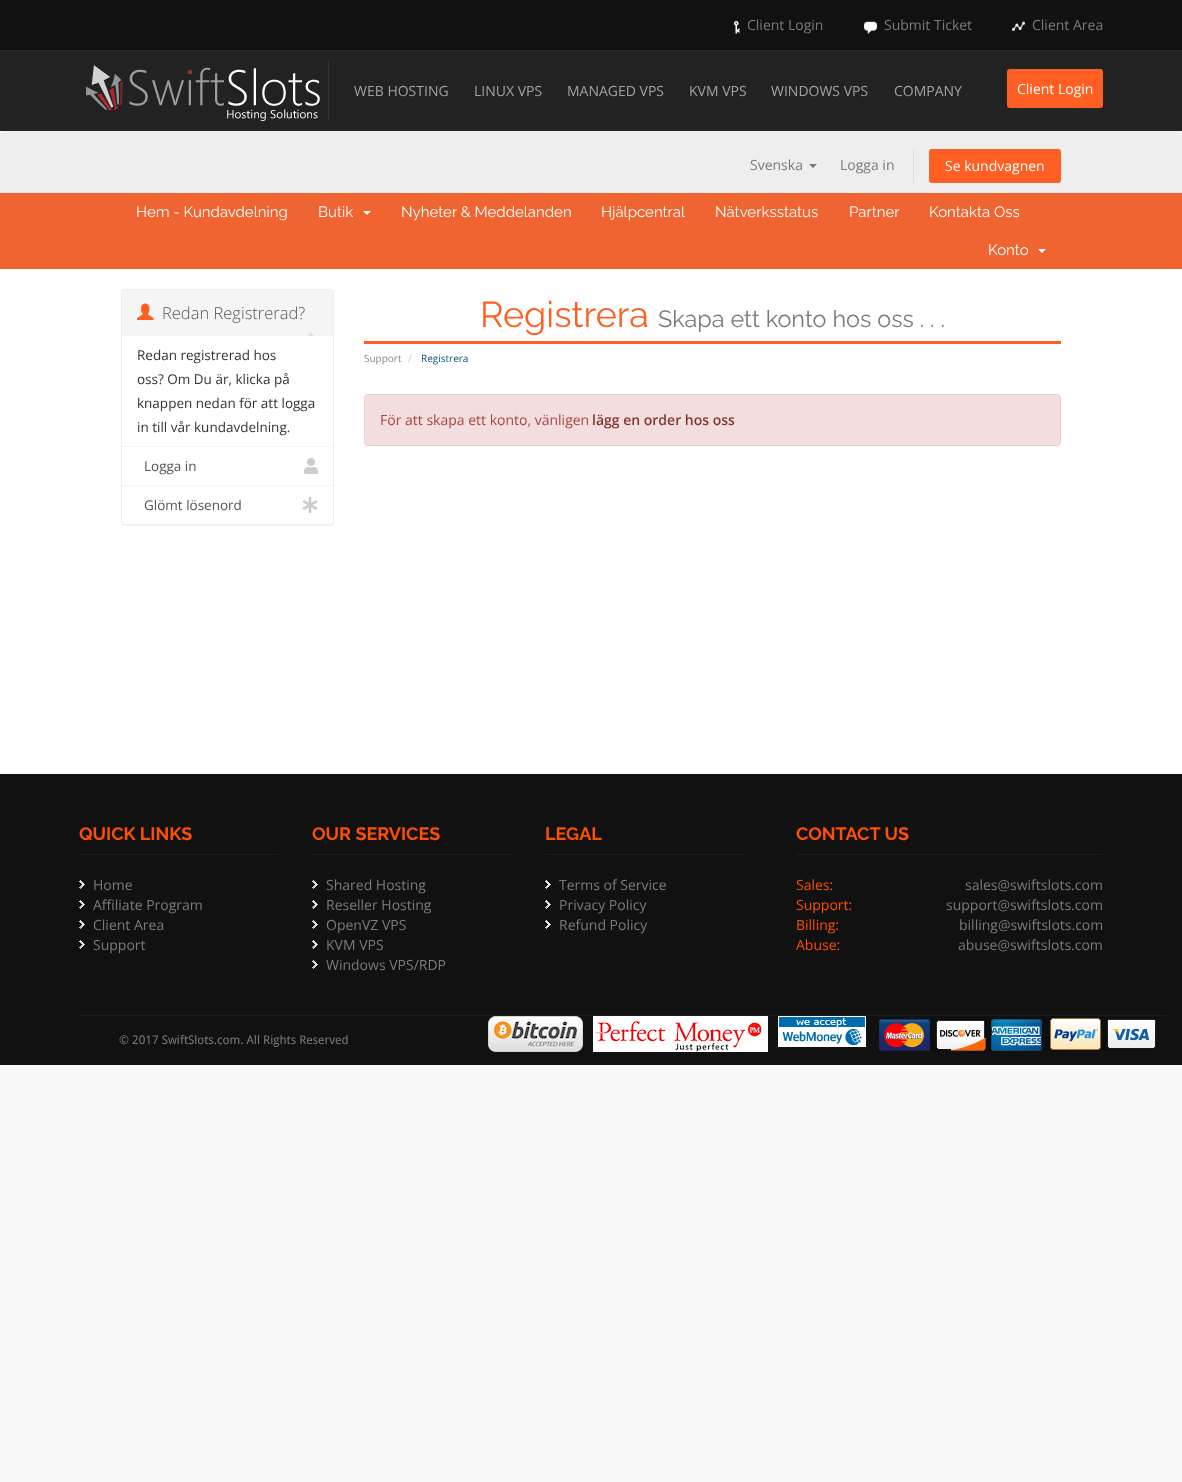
<svg xmlns="http://www.w3.org/2000/svg" width="1182" height="1482">
	<rect width="100%" height="100%" fill="#F8F8F8" />
	<rect x="0" y="0" width="1182" height="50" fill="#111111" />
	<image x="734" y="20" width="6" height="14" href="assets/img1.png" />
	<text x="747" y="30" font-family="Open Sans" font-size="14" fill="#7B7B7B">Client Login</text>
	<image x="864" y="21" width="13" height="13" href="assets/img2.png" />
	<text x="884" y="30" font-family="Open Sans" font-size="14" fill="#7B7B7B">Submit Ticket</text>
	<image x="1012" y="21" width="13" height="10" href="assets/img3.png" />
	<text x="1032" y="30" font-family="Open Sans" font-size="14" fill="#7B7B7B">Client Area</text>
	<rect x="0" y="51" width="1182" height="80" fill="#222222" />
	<rect x="0" y="50" width="1182" height="1" fill="#282828" />
	<image x="86" y="65" width="234" height="56" href="assets/img4.png" />
	<rect x="328" y="61" width="1" height="60" fill="#333333" />
	<g font-family="Open Sans" font-size="14" fill="#A2A2A2">
		<text x="354" y="96">WEB HOSTING</text>
		<text x="474" y="96">LINUX VPS</text>
		<text x="567" y="96">MANAGED VPS</text>
		<text x="689" y="96">KVM VPS</text>
		<text x="771" y="96">WINDOWS VPS</text>
		<text x="894" y="96">COMPANY</text>
	</g>
	<rect x="1007" y="69" width="96" height="39" rx="3" fill="#FF5F22" />
	<text x="1017" y="94" font-family="Open Sans" font-size="14" fill="#FFFFFF">Client Login</text>
	<path d="M5 131H1177C1180 131 1182 133 1182 136V193H0V136C0 133 2 131 5 131Z" fill="#EEEEEE" />
	<text x="750" y="170" font-family="Open Sans" font-size="14" fill="#7B7B7B">Svenska</text>
	<path d="M809 164H817L813 168Z" fill="#777777" />
	<text x="840" y="170" font-family="Open Sans" font-size="14" fill="#7B7B7B">Logga in</text>
	<rect x="913" y="149" width="1" height="34" fill="#DDDDDD" />
	<rect x="929" y="149" width="132" height="34" rx="3" fill="#FF5F22" />
	<text x="945" y="171" font-family="Open Sans" font-size="14" fill="#FFFFFF">Se kundvagnen</text>
	<rect x="0" y="193" width="1182" height="76" fill="#FF5F22" />
	<rect x="0" y="193" width="1182" height="76" rx="4" fill="#EF6430" />
	<g font-family="Raleway" font-size="15" fill="#FFFFFF">
		<text x="136" y="217">Hem - Kundavdelning</text>
		<text x="318" y="217">Butik</text>
	</g>
	<path d="M363 211H371L367 215Z" fill="#FFFFFF" />
	<g font-family="Raleway" font-size="15" fill="#FFFFFF">
		<text x="401" y="217">Nyheter &amp; Meddelanden</text>
		<text x="601" y="217">Hjälpcentral</text>
		<text x="715" y="217">Nätverksstatus</text>
		<text x="849" y="217">Partner</text>
		<text x="929" y="217">Kontakta Oss</text>
		<text x="988" y="255">Konto</text>
	</g>
	<path d="M1038 249H1046L1042 253Z" fill="#FFFFFF" />
	<rect x="0" y="269" width="1182" height="505" fill="#FFFFFF" />
	<rect x="121" y="290" width="213" height="236" rx="4" fill="#000000" fill-opacity="0.05" filter="blur(0.5px)" />
	<rect x="121.5" y="289.5" width="212" height="235" rx="3.5" fill="#FFFFFF" stroke="#EEEEEE" />
	<path d="M125 290H330C331.5 290 333 291.5 333 293V336H122V293C122 291.5 123.5 290 125 290Z" fill="#F5F5F5" />
	<image x="137" y="303" width="17" height="17" href="assets/img5.png" />
	<text x="162" y="319" font-family="Open Sans" font-size="16.5" font-weight="300" fill="#555555">Redan Registrerad?</text>
	<image x="308" y="333" width="7" height="3" href="assets/img6.png" />
	<rect x="122" y="446" width="211" height="1" fill="#F5F5F5" />
	<g font-family="Open Sans" font-size="13.5" fill="#333333">
		<text x="137" y="360">Redan registrerad hos</text>
		<text x="137" y="384">oss? Om Du är, klicka på</text>
		<text x="137" y="408">knappen nedan för att logga</text>
		<text x="137" y="432">in till vår kundavdelning.</text>
	</g>
	<text x="144" y="471" font-family="Open Sans" font-size="13.5" fill="#555555">Logga in</text>
	<image x="304" y="458" width="14" height="16" href="assets/img7.png" />
	<path d="M122 485H333V521C333 522.5 331.5 524 330 524H125C123.5 524 122 522.5 122 521Z" fill="#FFFFFF" />
	<rect x="122" y="485" width="211" height="1" fill="#F5F5F5" />
	<text x="144" y="510" font-family="Open Sans" font-size="13.5" fill="#555555">Glömt lösenord</text>
	<image x="302" y="497" width="16" height="16" href="assets/img8.png" />
	<rect x="364" y="341" width="697" height="3" fill="#FF5F22" />
	<text x="480" y="327" font-family="Raleway" font-size="36" fill="#FF5F22">Registrera</text>
	<text x="658" y="327" font-family="Raleway" font-size="23.4" fill="#7B7B7B">Skapa ett konto hos oss . . .</text>
	<text x="364" y="362" font-family="Open Sans" font-size="10" fill="#888888">Support</text>
	<text x="408" y="362" font-family="Open Sans" font-size="10" fill="#CCCCCC">/</text>
	<text x="421" y="362" font-family="Open Sans" font-size="10" fill="#0E5077">Registrera</text>
	<rect x="364.5" y="394.5" width="696" height="51" rx="3.5" fill="#F2DEDE" stroke="#EBCCD1" />
	<text x="380" y="425" font-family="Open Sans" font-size="14" fill="#A94442">För att skapa ett konto, vänligen</text>
	<text x="592" y="425" font-family="Open Sans" font-size="14" font-weight="600" fill="#843534">lägg en order hos oss</text>
	<rect x="0" y="774" width="1182" height="291" fill="#111111" />
	<rect x="79" y="854" width="200" height="1" fill="#1C1C1C" />
	<text x="79" y="840" font-family="Raleway" font-size="18" font-weight="700" fill="#FF4F00">QUICK LINKS</text>
	<image x="79" y="880" width="7" height="10" href="assets/img9.png" />
	<text x="93" y="890" font-family="Open Sans" font-size="14" fill="#7B7B7B">Home</text>
	<image x="79" y="900" width="7" height="10" href="assets/img9.png" />
	<text x="93" y="910" font-family="Open Sans" font-size="14" fill="#7B7B7B">Affiliate Program</text>
	<image x="79" y="920" width="7" height="10" href="assets/img9.png" />
	<text x="93" y="930" font-family="Open Sans" font-size="14" fill="#7B7B7B">Client Area</text>
	<image x="79" y="940" width="7" height="10" href="assets/img9.png" />
	<text x="93" y="950" font-family="Open Sans" font-size="14" fill="#7B7B7B">Support</text>
	<rect x="312" y="854" width="200" height="1" fill="#1C1C1C" />
	<text x="312" y="840" font-family="Raleway" font-size="18" font-weight="700" fill="#FF4F00">OUR SERVICES</text>
	<image x="312" y="880" width="7" height="10" href="assets/img9.png" />
	<text x="326" y="890" font-family="Open Sans" font-size="14" fill="#7B7B7B">Shared Hosting</text>
	<image x="312" y="900" width="7" height="10" href="assets/img9.png" />
	<text x="326" y="910" font-family="Open Sans" font-size="14" fill="#7B7B7B">Reseller Hosting</text>
	<image x="312" y="920" width="7" height="10" href="assets/img9.png" />
	<text x="326" y="930" font-family="Open Sans" font-size="14" fill="#7B7B7B">OpenVZ VPS</text>
	<image x="312" y="940" width="7" height="10" href="assets/img9.png" />
	<text x="326" y="950" font-family="Open Sans" font-size="14" fill="#7B7B7B">KVM VPS</text>
	<image x="312" y="960" width="7" height="10" href="assets/img9.png" />
	<text x="326" y="970" font-family="Open Sans" font-size="14" fill="#7B7B7B">Windows VPS/RDP</text>
	<rect x="545" y="854" width="200" height="1" fill="#1C1C1C" />
	<text x="545" y="840" font-family="Raleway" font-size="18" font-weight="700" fill="#FF4F00">LEGAL</text>
	<image x="545" y="880" width="7" height="10" href="assets/img9.png" />
	<text x="559" y="890" font-family="Open Sans" font-size="14" fill="#7B7B7B">Terms of Service</text>
	<image x="545" y="900" width="7" height="10" href="assets/img9.png" />
	<text x="559" y="910" font-family="Open Sans" font-size="14" fill="#7B7B7B">Privacy Policy</text>
	<image x="545" y="920" width="7" height="10" href="assets/img9.png" />
	<text x="559" y="930" font-family="Open Sans" font-size="14" fill="#7B7B7B">Refund Policy</text>
	<rect x="796" y="854" width="307" height="1" fill="#1C1C1C" />
	<text x="796" y="840" font-family="Raleway" font-size="18" font-weight="700" fill="#FF4F00">CONTACT US</text>
	<text x="796" y="890" font-family="Open Sans" font-size="14" fill="#FF4F00">Sales:</text>
	<text x="965" y="890" font-family="Open Sans" font-size="14" fill="#7B7B7B">sales@swiftslots.com</text>
	<text x="796" y="910" font-family="Open Sans" font-size="14" fill="#FF4F00">Support:</text>
	<text x="946" y="910" font-family="Open Sans" font-size="14" fill="#7B7B7B">support@swiftslots.com</text>
	<text x="796" y="930" font-family="Open Sans" font-size="14" fill="#FF4F00">Billing:</text>
	<text x="959" y="930" font-family="Open Sans" font-size="14" fill="#7B7B7B">billing@swiftslots.com</text>
	<text x="796" y="950" font-family="Open Sans" font-size="14" fill="#FF4F00">Abuse:</text>
	<text x="958" y="950" font-family="Open Sans" font-size="14" fill="#7B7B7B">abuse@swiftslots.com</text>
	<rect x="79" y="1015" width="1088" height="1" fill="#1C1C1C" />
	<text x="119" y="1044" font-family="Droid Sans" font-size="12" fill="#7B7B7B">© 2017 SwiftSlots.com. All Rights Reserved</text>
	<image x="488" y="1016" width="95" height="36" href="assets/img10.png" />
	<image x="593" y="1016" width="175" height="36" href="assets/img11.png" />
	<image x="778" y="1016" width="88" height="31" href="assets/img12.png" />
	<image x="879" y="1018" width="277" height="33" href="assets/img13.png" />
</svg>
